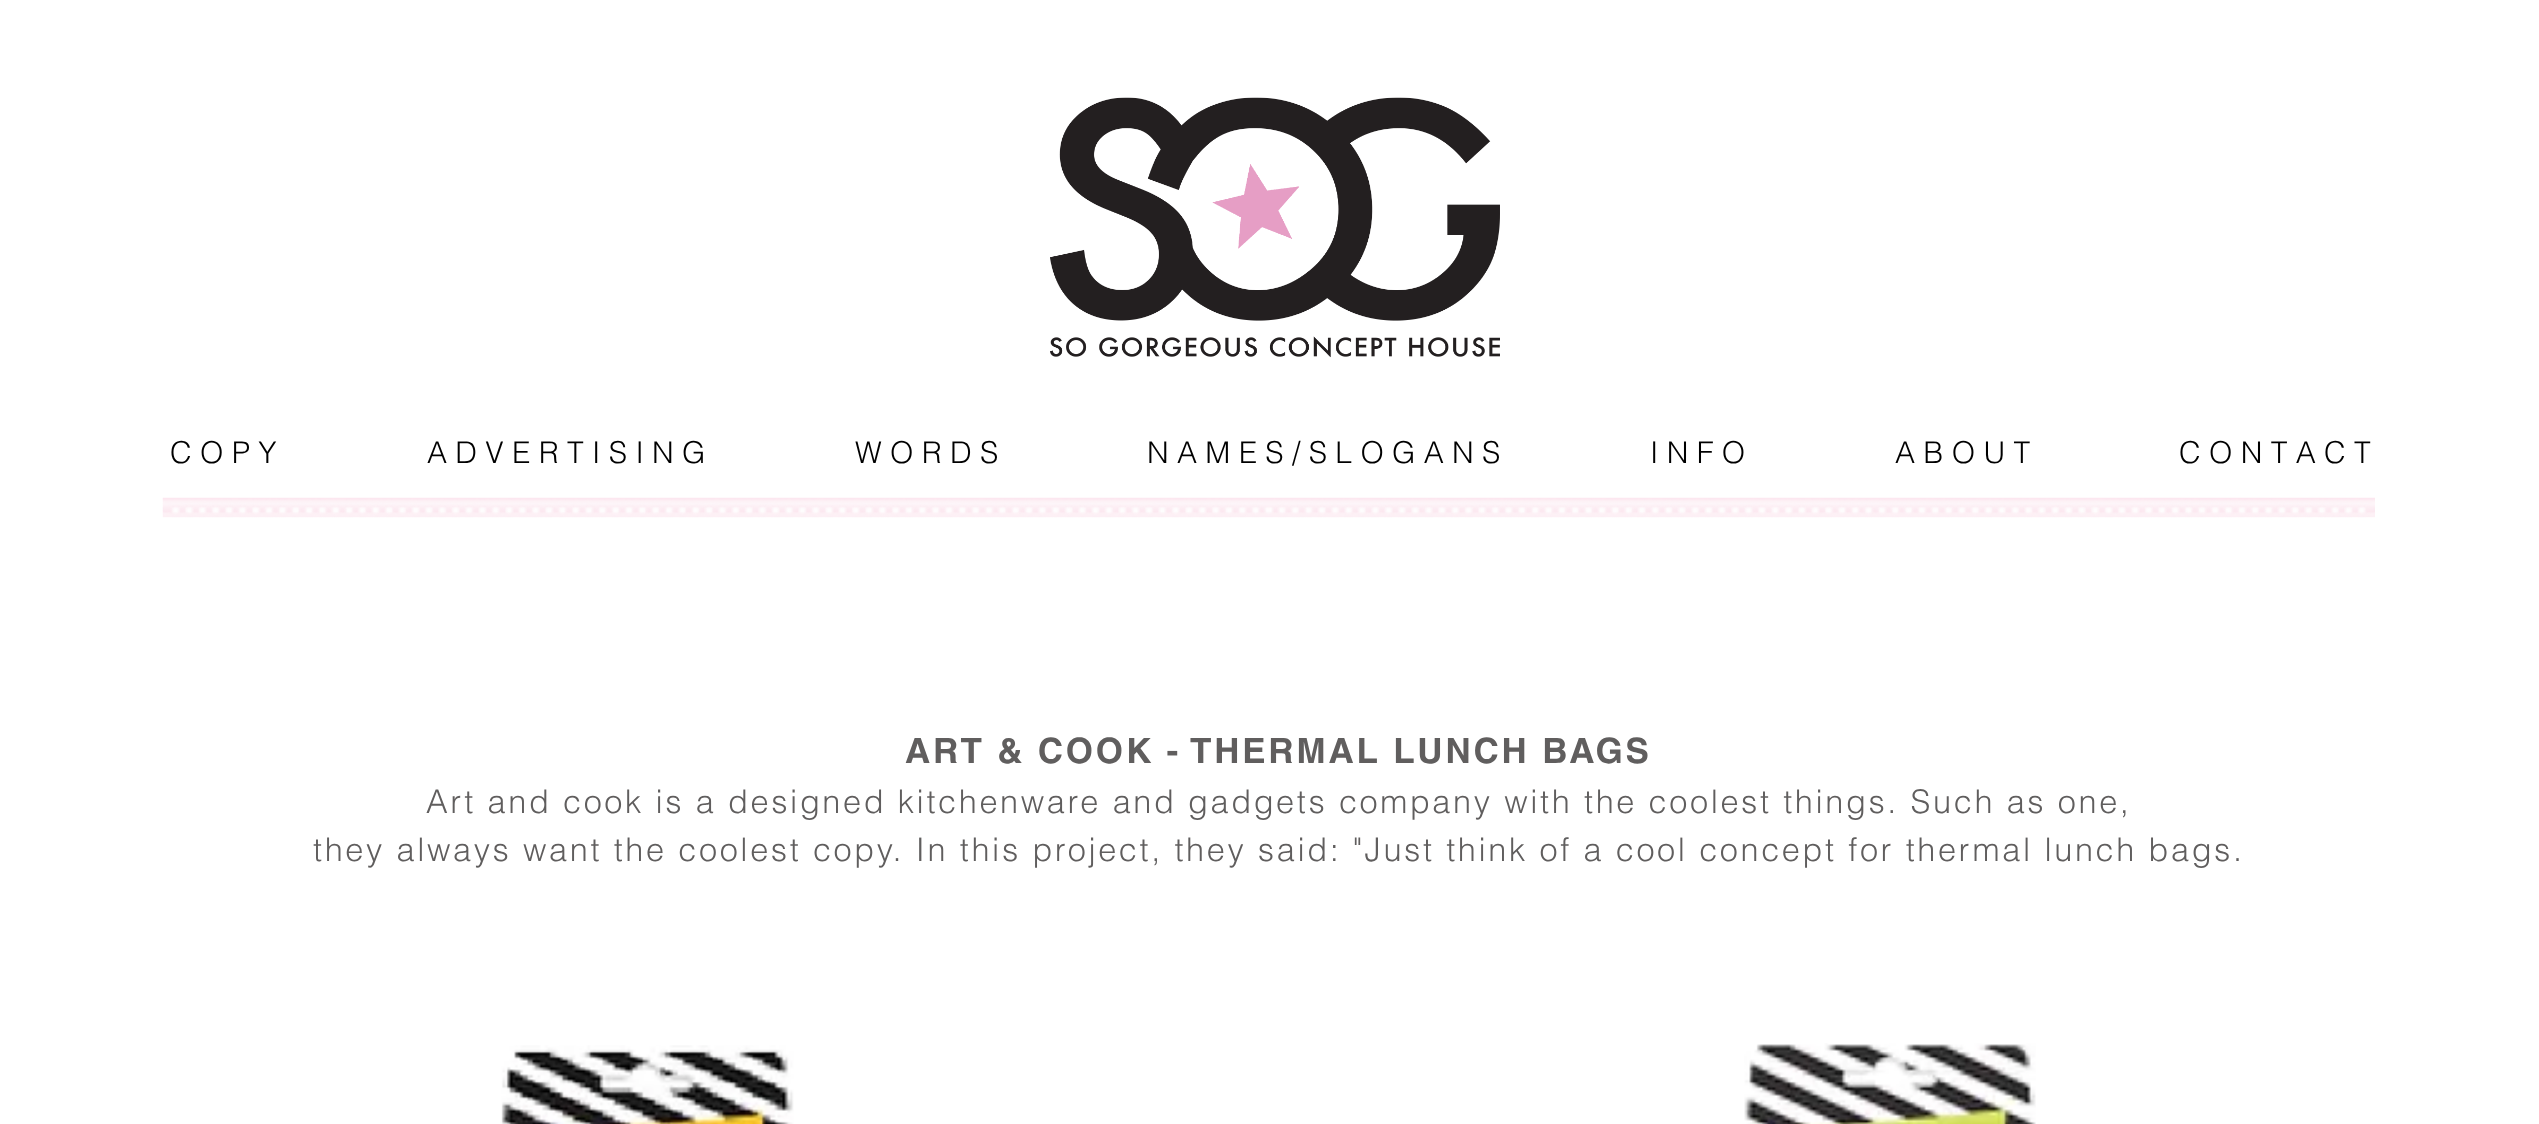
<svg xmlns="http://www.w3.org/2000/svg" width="2539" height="1124">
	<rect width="100%" height="100%" fill="#FFFFFF" />
	<image x="1050" y="97" width="450" height="261" href="assets/img1.png" />
	<g font-family="helvetica" font-size="30" font-weight="300" fill="#000000">
		<text x="170" y="463">C O P Y</text>
		<text x="427" y="463">A D V E R T I S I N G</text>
		<text x="855" y="463">W O R D S</text>
		<text x="1147" y="463">N A M E S / S L O G A N S</text>
		<text x="1650" y="463">I N F O</text>
		<text x="1895" y="463">A B O U T</text>
		<text x="2179" y="463">C O N T A C T</text>
	</g>
	<image x="162" y="497" width="2213" height="21" href="assets/img2.png" />
	<text x="905" y="763" font-family="helvetica" font-size="35" font-weight="700" letter-spacing="2.8" fill="#605E5E">ART &amp; COOK - THERMAL LUNCH BAGS</text>
	<g font-family="helvetica" font-size="32.5" font-weight="300" letter-spacing="2.6" fill="#605E5E">
		<text x="426" y="813">Art and cook is a designed kitchenware and gadgets company with the coolest things. Such as one,</text>
		<text x="313" y="861">they always want the coolest copy. In this project, they said: "Just think of a cool concept for thermal lunch bags.</text>
	</g>
	<image x="501" y="1045" width="293" height="79" href="assets/img3.png" />
	<image x="1744" y="1043" width="292" height="81" href="assets/img4.png" />
</svg>
